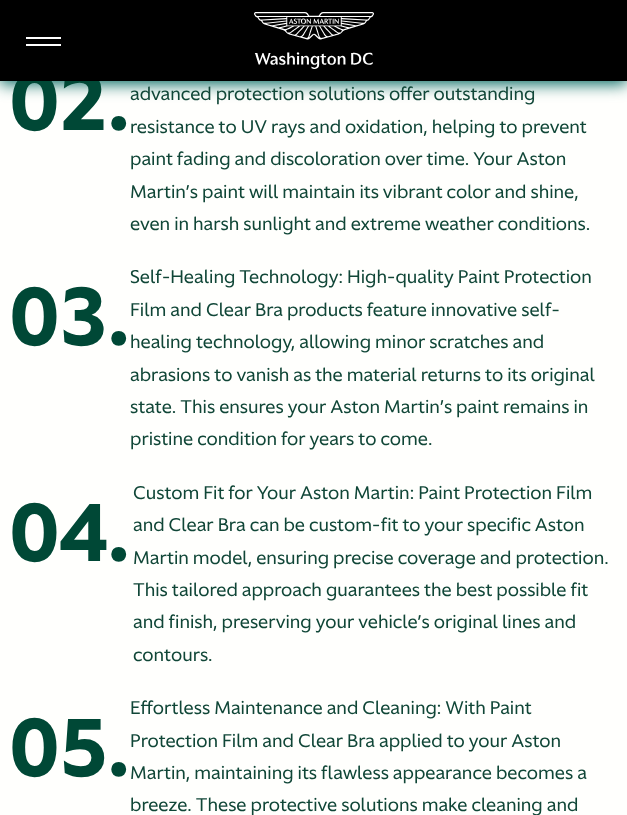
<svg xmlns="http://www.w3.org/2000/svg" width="627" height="815">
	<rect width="100%" height="100%" fill="#FFFFFD" />
	<rect x="0" y="3" width="627" height="81" fill="#00665E" filter="blur(8px)" />
	<text x="10" y="130" font-family="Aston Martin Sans" font-size="80" font-weight="700" fill="#004836">02.</text>
	<rect x="0" y="0" width="627" height="81" fill="#000000" />
	<rect x="26" y="37" width="35" height="2" fill="#FFFFFF" />
	<rect x="26" y="44" width="35" height="2" fill="#FFFFFF" />
	<image x="254" y="12" width="120" height="57" href="assets/img1.png" />
	<g font-family="Aston Martin Sans" font-size="18" fill="#104637">
		<text x="130" y="100">advanced protection solutions offer outstanding</text>
		<text x="130" y="133">resistance to UV rays and oxidation, helping to prevent</text>
		<text x="130" y="165">paint fading and discoloration over time. Your Aston</text>
		<text x="130" y="198">Martin’s paint will maintain its vibrant color and shine,</text>
		<text x="130" y="230">even in harsh sunlight and extreme weather conditions.</text>
		<text x="130" y="283">Self-Healing Technology: High-quality Paint Protection</text>
	</g>
	<text x="10" y="345" font-family="Aston Martin Sans" font-size="80" font-weight="700" fill="#004836">03.</text>
	<g font-family="Aston Martin Sans" font-size="18" fill="#104637">
		<text x="130" y="316">Film and Clear Bra products feature innovative self-</text>
		<text x="130" y="348">healing technology, allowing minor scratches and</text>
		<text x="130" y="381">abrasions to vanish as the material returns to its original</text>
		<text x="130" y="413">state. This ensures your Aston Martin’s paint remains in</text>
		<text x="130" y="445">pristine condition for years to come.</text>
		<text x="133" y="499">Custom Fit for Your Aston Martin: Paint Protection Film</text>
	</g>
	<text x="10" y="561" font-family="Aston Martin Sans" font-size="80" font-weight="700" fill="#004836">04.</text>
	<g font-family="Aston Martin Sans" font-size="18" fill="#104637">
		<text x="133" y="531">and Clear Bra can be custom-fit to your specific Aston</text>
		<text x="133" y="564">Martin model, ensuring precise coverage and protection.</text>
		<text x="133" y="596">This tailored approach guarantees the best possible fit</text>
		<text x="133" y="628">and finish, preserving your vehicle’s original lines and</text>
		<text x="133" y="661">contours.</text>
		<text x="130" y="714">Effortless Maintenance and Cleaning: With Paint</text>
	</g>
	<text x="10" y="776" font-family="Aston Martin Sans" font-size="80" font-weight="700" fill="#004836">05.</text>
	<g font-family="Aston Martin Sans" font-size="18" fill="#104637">
		<text x="130" y="747">Protection Film and Clear Bra applied to your Aston</text>
		<text x="130" y="779">Martin, maintaining its flawless appearance becomes a</text>
		<text x="130" y="811">breeze. These protective solutions make cleaning and</text>
	</g>
</svg>
